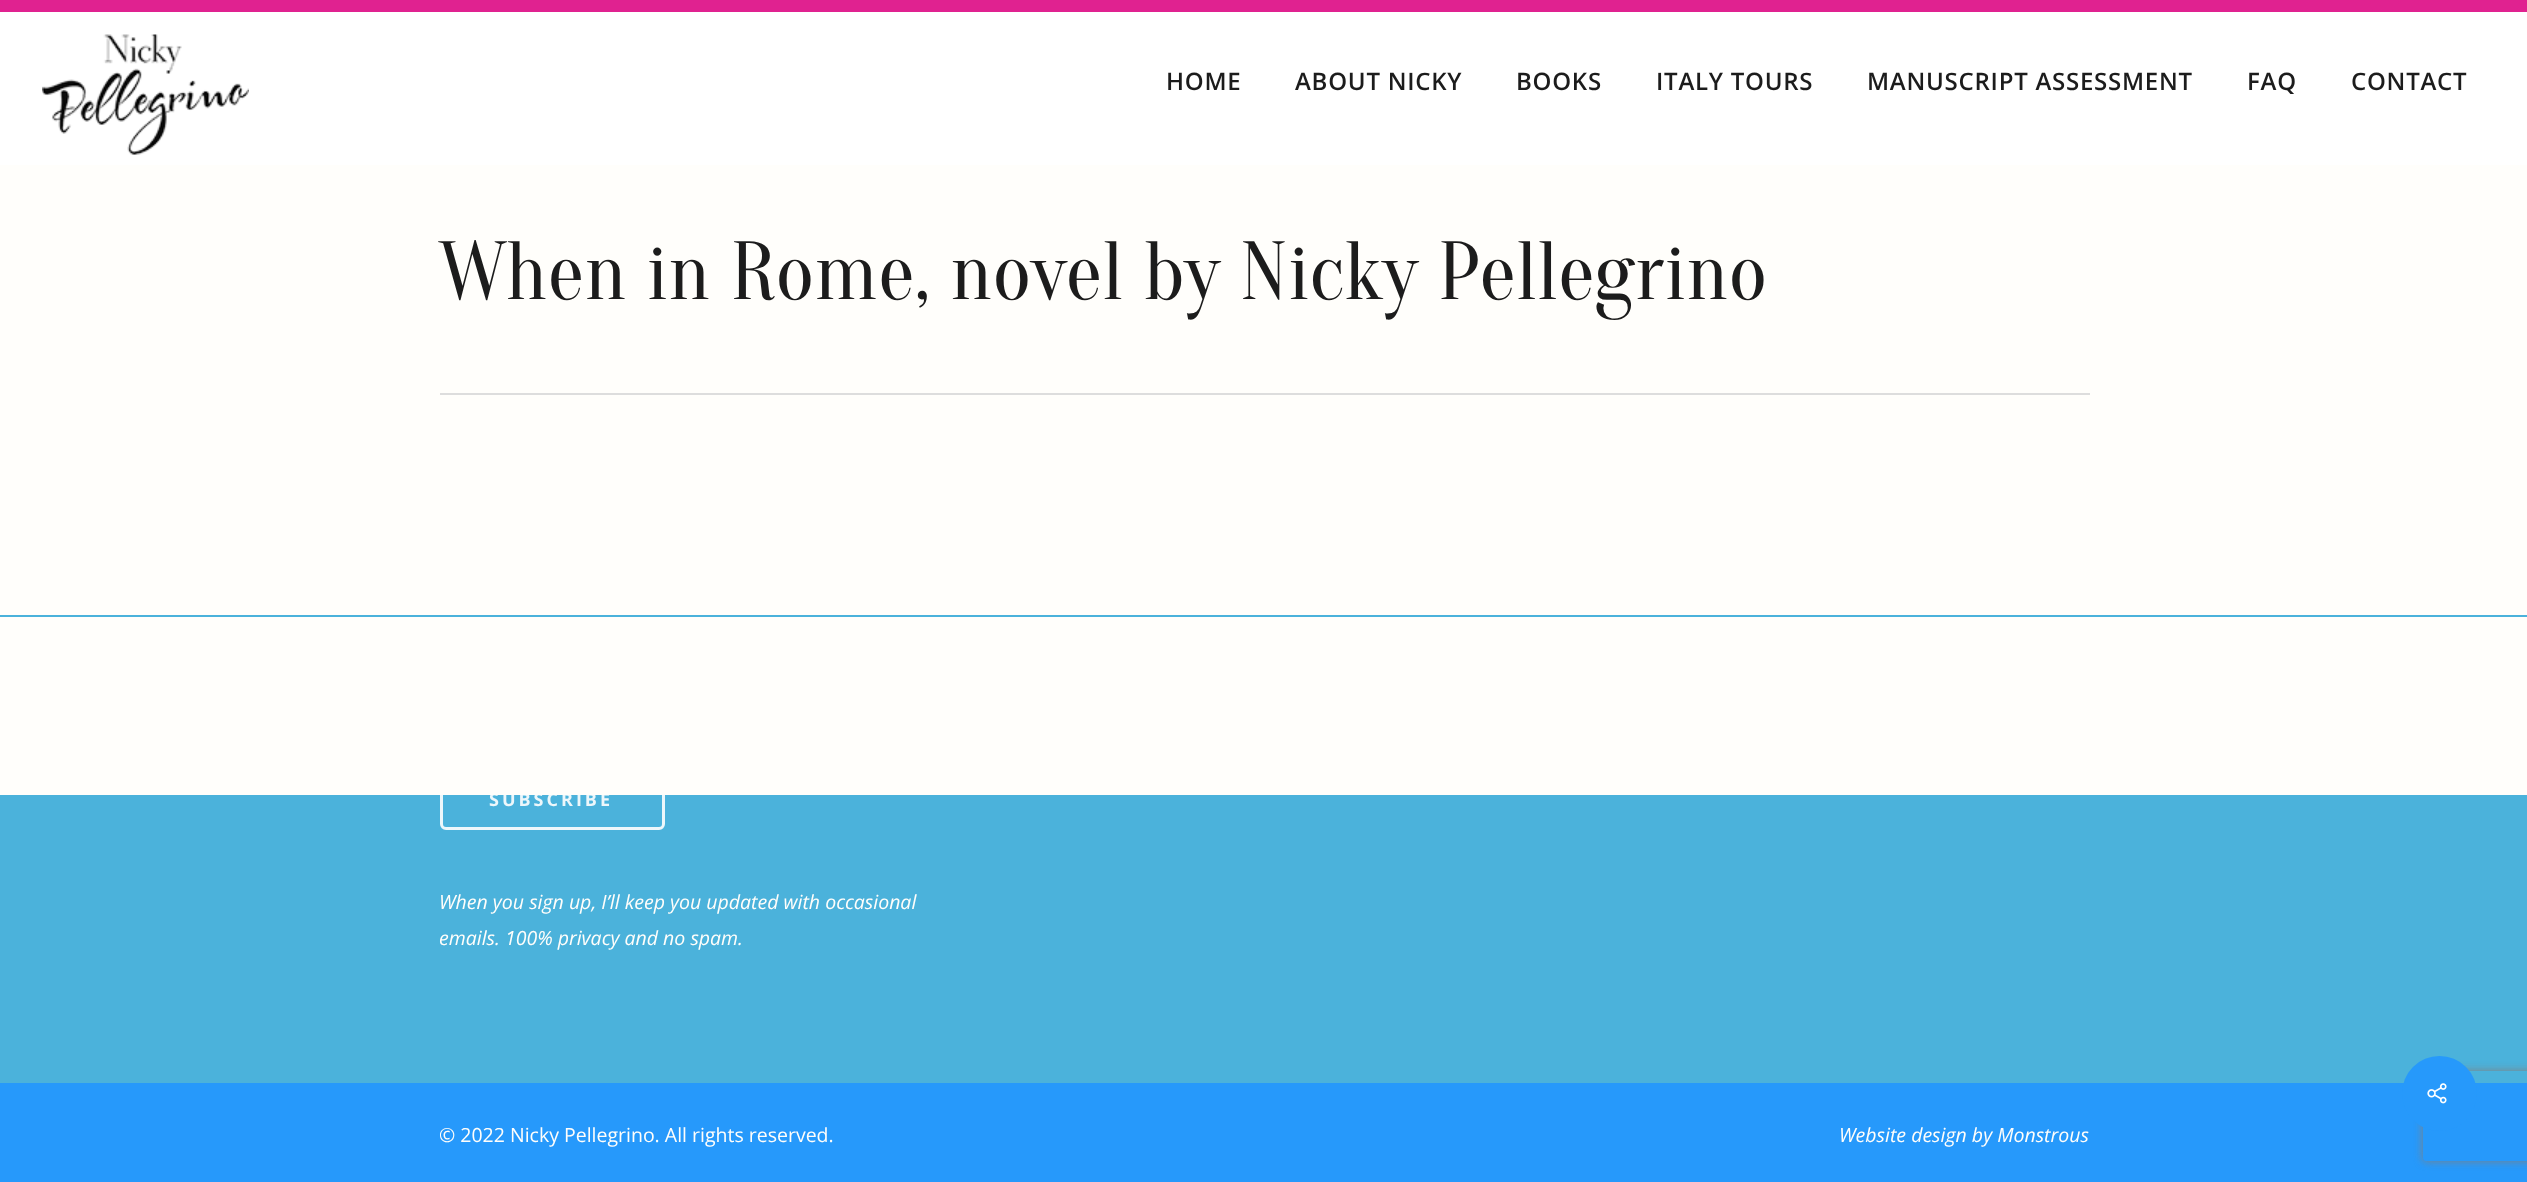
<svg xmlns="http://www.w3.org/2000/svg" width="2527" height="1182">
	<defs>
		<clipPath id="clip1"><path d="M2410 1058H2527V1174H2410ZM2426 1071H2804C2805.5 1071 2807 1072.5 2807 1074V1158C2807 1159.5 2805.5 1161 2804 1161H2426C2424.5 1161 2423 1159.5 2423 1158V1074C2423 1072.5 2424.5 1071 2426 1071Z" clip-rule="evenodd" /></clipPath>
	</defs>
	<rect width="100%" height="100%" fill="#4BB2DB" />
	<rect x="0" y="12" width="2527" height="153" fill="#FFFFFF" />
	<rect x="0" y="0" width="2527" height="12" fill="#E02290" />
	<image x="42" y="34" width="207" height="121" href="assets/img1.png" />
	<g font-family="Open Sans" font-size="24" font-weight="600" letter-spacing="0.75" fill="#1C1C1C">
		<text x="1166" y="90">HOME</text>
		<text x="1295" y="90">ABOUT NICKY</text>
		<text x="1516" y="90">BOOKS</text>
		<text x="1656" y="90">ITALY TOURS</text>
		<text x="1867" y="90">MANUSCRIPT ASSESSMENT</text>
		<text x="2247" y="90">FAQ</text>
		<text x="2351" y="90">CONTACT</text>
	</g>
	<rect x="441.5" y="769.5" width="222" height="59" rx="4.5" fill="none" stroke="#EDF7FB" stroke-width="3" />
	<text x="489" y="806" font-family="Open Sans" font-size="18" font-weight="700" letter-spacing="3" fill="#EDF7FB">SUBSCRIBE</text>
	<rect x="0" y="165" width="2527" height="630" fill="#FFFEFB" />
	<rect x="440" y="393" width="1650" height="2" fill="#DDDDDD" />
	<text x="439" y="299" font-family="Oranienbaum" font-size="82.5" fill="#1C1C1C">When in Rome, novel by Nicky Pellegrino</text>
	<rect x="0" y="615" width="2527" height="2" fill="#4BB2DB" />
	<g font-family="Open Sans" font-size="19.5" font-style="italic" fill="#FFFEFB">
		<text x="439" y="909">When you sign up, I’ll keep you updated with occasional</text>
		<text x="439" y="945">emails. 100% privacy and no spam.</text>
	</g>
	<rect x="0" y="1083" width="2527" height="99" fill="#2699FB" />
	<text x="439" y="1142" font-family="Open Sans" font-size="19.5" fill="#FFFEFB">© 2022 Nicky Pellegrino. All rights reserved.</text>
	<text x="1839" y="1142" font-family="Open Sans" font-size="19.5" font-style="italic" fill="#FFFEFB">Website design by Monstrous</text>
	<g clip-path="url(#clip1)">
		<rect x="2423" y="1071" width="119" height="90" rx="3" fill="#808080" filter="blur(4px)" />
	</g>
	<circle cx="2439.5" cy="1093.5" r="37.5" fill="#2699FB" />
	<image x="2427" y="1083" width="20" height="21" href="assets/img2.png" />
</svg>
